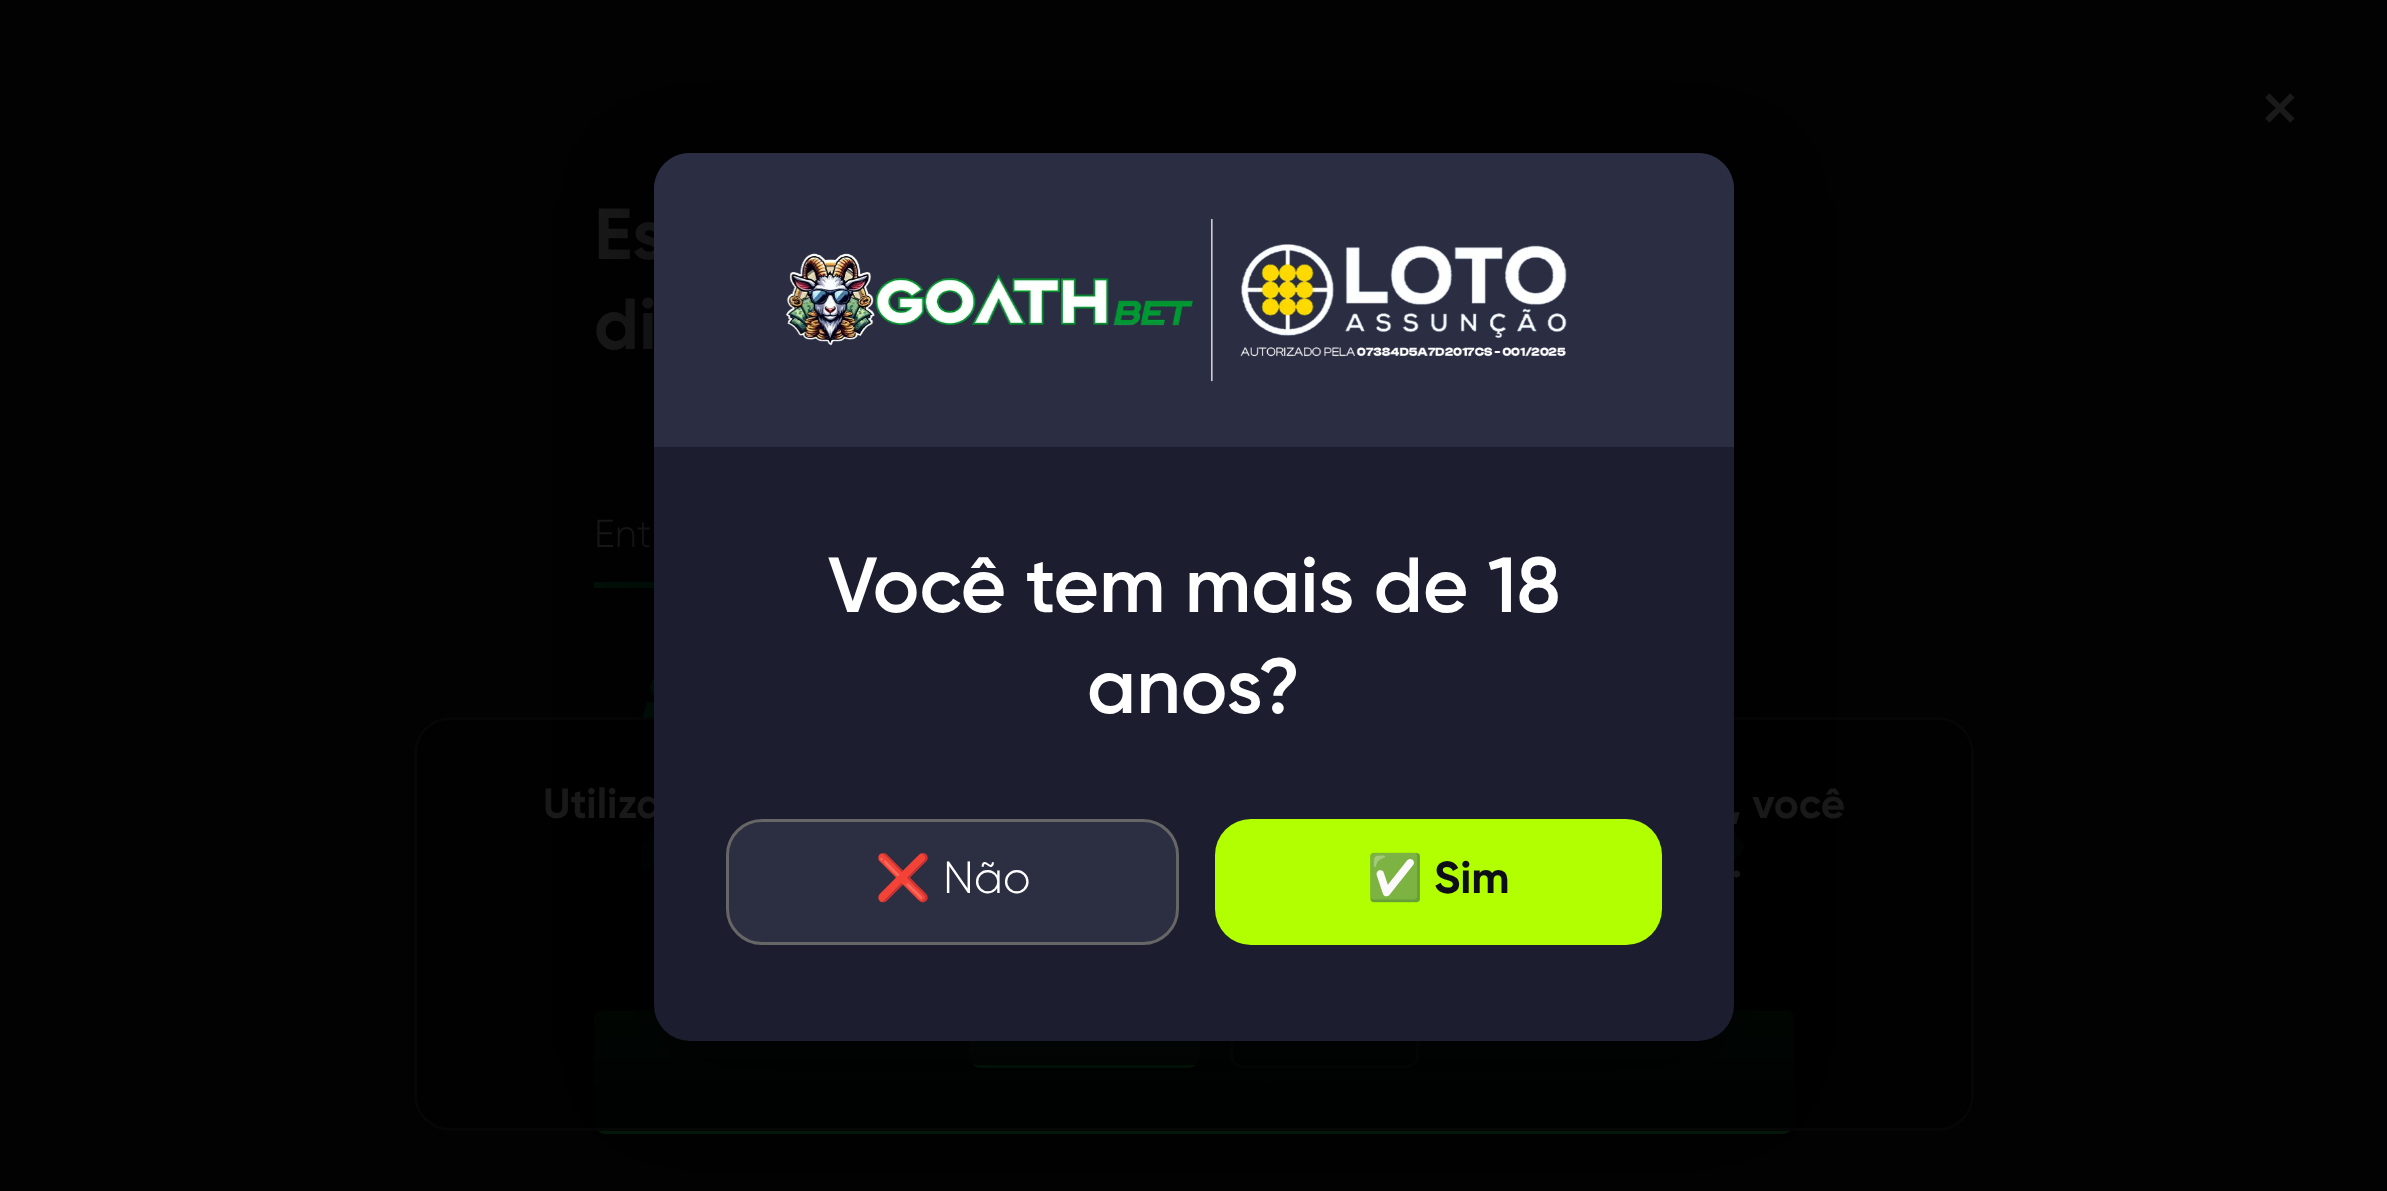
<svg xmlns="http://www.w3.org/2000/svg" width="2387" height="1191">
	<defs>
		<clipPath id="clip1"><rect x="594" y="1008" width="1200" height="126" rx="12" /></clipPath>
		<linearGradient id="g1" gradientUnits="userSpaceOnUse" x1="1194" y1="891" x2="1194" y2="1011"><stop offset="0" stop-color="#04190B" /><stop offset="1" stop-color="#001008" stop-opacity="0.25" /></linearGradient>
		<linearGradient id="g2" gradientUnits="userSpaceOnUse" x1="1194" y1="1011" x2="1194" y2="1131"><stop offset="0" stop-color="#04190B" /><stop offset="1" stop-color="#001008" stop-opacity="0.25" /></linearGradient>
		<linearGradient id="g3" gradientUnits="userSpaceOnUse" x1="1194" y1="1131" x2="1194" y2="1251"><stop offset="0" stop-color="#04190B" /><stop offset="1" stop-color="#001008" stop-opacity="0.25" /></linearGradient>
		<clipPath id="clip2"><rect x="969" y="942" width="231" height="126" rx="12" /></clipPath>
		<linearGradient id="g4" gradientUnits="userSpaceOnUse" x1="1085" y1="945" x2="1085" y2="1065"><stop offset="0" stop-color="#04190B" /><stop offset="1" stop-color="#001008" stop-opacity="0.25" /></linearGradient>
		<linearGradient id="g5" gradientUnits="userSpaceOnUse" x1="1085" y1="1065" x2="1085" y2="1185"><stop offset="0" stop-color="#04190B" /><stop offset="1" stop-color="#001008" stop-opacity="0.25" /></linearGradient>
	</defs>
	<rect width="100%" height="100%" fill="#020202" />
	<image x="2265" y="93" width="30" height="30" href="assets/img1.png" />
	<g font-family="Gilroy" font-size="72" font-weight="700" fill="#191919">
		<text x="594" y="259">Es</text>
		<text x="594" y="349">di</text>
	</g>
	<rect x="594" y="582" width="60" height="6" fill="#001008" />
	<text x="594" y="547" font-family="Gilroy" font-size="39" font-weight="300" fill="#191919">Ent</text>
	<path d="M660 698C674 698 674 677 660 677C647 677 647 698 660 698ZM679 719L674 702H647L642 719Z" fill="#001008" />
	<image x="642" y="829" width="12" height="41" href="assets/img2.png" />
	<image x="1734" y="833" width="11" height="27" href="assets/img3.png" />
	<g clip-path="url(#clip1)">
		<rect x="594" y="1008" width="1200" height="3" fill="url(#g1)" />
		<rect x="594" y="1011" width="1200" height="120" fill="url(#g2)" />
		<rect x="594" y="1131" width="1200" height="3" fill="url(#g3)" />
	</g>
	<rect x="414" y="717" width="1560" height="414" rx="36" fill="#020202" fill-opacity="0.75" />
	<rect x="415.5" y="718.5" width="1557" height="411" rx="34.5" fill="none" stroke="#191919" stroke-opacity="0.25" stroke-width="3" />
	<rect x="969" y="942" width="231" height="126" rx="12" fill="#030303" />
	<g clip-path="url(#clip2)">
		<rect x="969" y="1041" width="231" height="24" fill="url(#g4)" />
		<rect x="969" y="1065" width="231" height="3" fill="url(#g5)" />
	</g>
	<rect x="1231.5" y="943.5" width="186" height="123" rx="10.5" fill="none" stroke="#191919" stroke-opacity="0.2" stroke-width="3" />
	<rect x="654" y="183" width="1080" height="888" rx="36" fill="#000000" fill-opacity="0.5" filter="blur(45px)" />
	<g font-family="Gilroy" font-size="42" font-weight="700" fill="#191919">
		<text x="543" y="818">Utiliza</text>
		<text x="1730" y="818">, você</text>
		<text x="1731" y="877">.</text>
	</g>
	<rect x="654" y="153" width="1080" height="888" rx="36" fill="#1C1E30" />
	<path d="M690 153H1698C1718 153 1734 169 1734 189V447H654V189C654 169 670 153 690 153Z" fill="#2B2D42" />
	<image x="785" y="219" width="782" height="163" href="assets/img4.png" />
	<g font-family="Gilroy" font-size="78" font-weight="600" fill="#FFFFFF">
		<text x="828" y="612">Você tem mais de 18</text>
		<text x="1087" y="713">anos?</text>
	</g>
	<rect x="727.5" y="820.5" width="450" height="123" rx="34.5" fill="#2C2E42" stroke="#666666" stroke-width="3" />
	<text x="875" y="893" font-family="Noto Color Emoji" font-size="45" fill="#FFFFFF">❌</text>
	<text x="943" y="893" font-family="Gilroy" font-size="45" font-weight="300" fill="#FFFFFF">Não</text>
	<rect x="1215" y="819" width="447" height="126" rx="36" fill="#B1FF00" />
	<text x="1367" y="893" font-family="Noto Color Emoji" font-size="45" font-weight="700" fill="#0D0E17">✅</text>
	<text x="1434" y="893" font-family="Gilroy" font-size="45" font-weight="700" fill="#0D0E17">Sim</text>
</svg>
